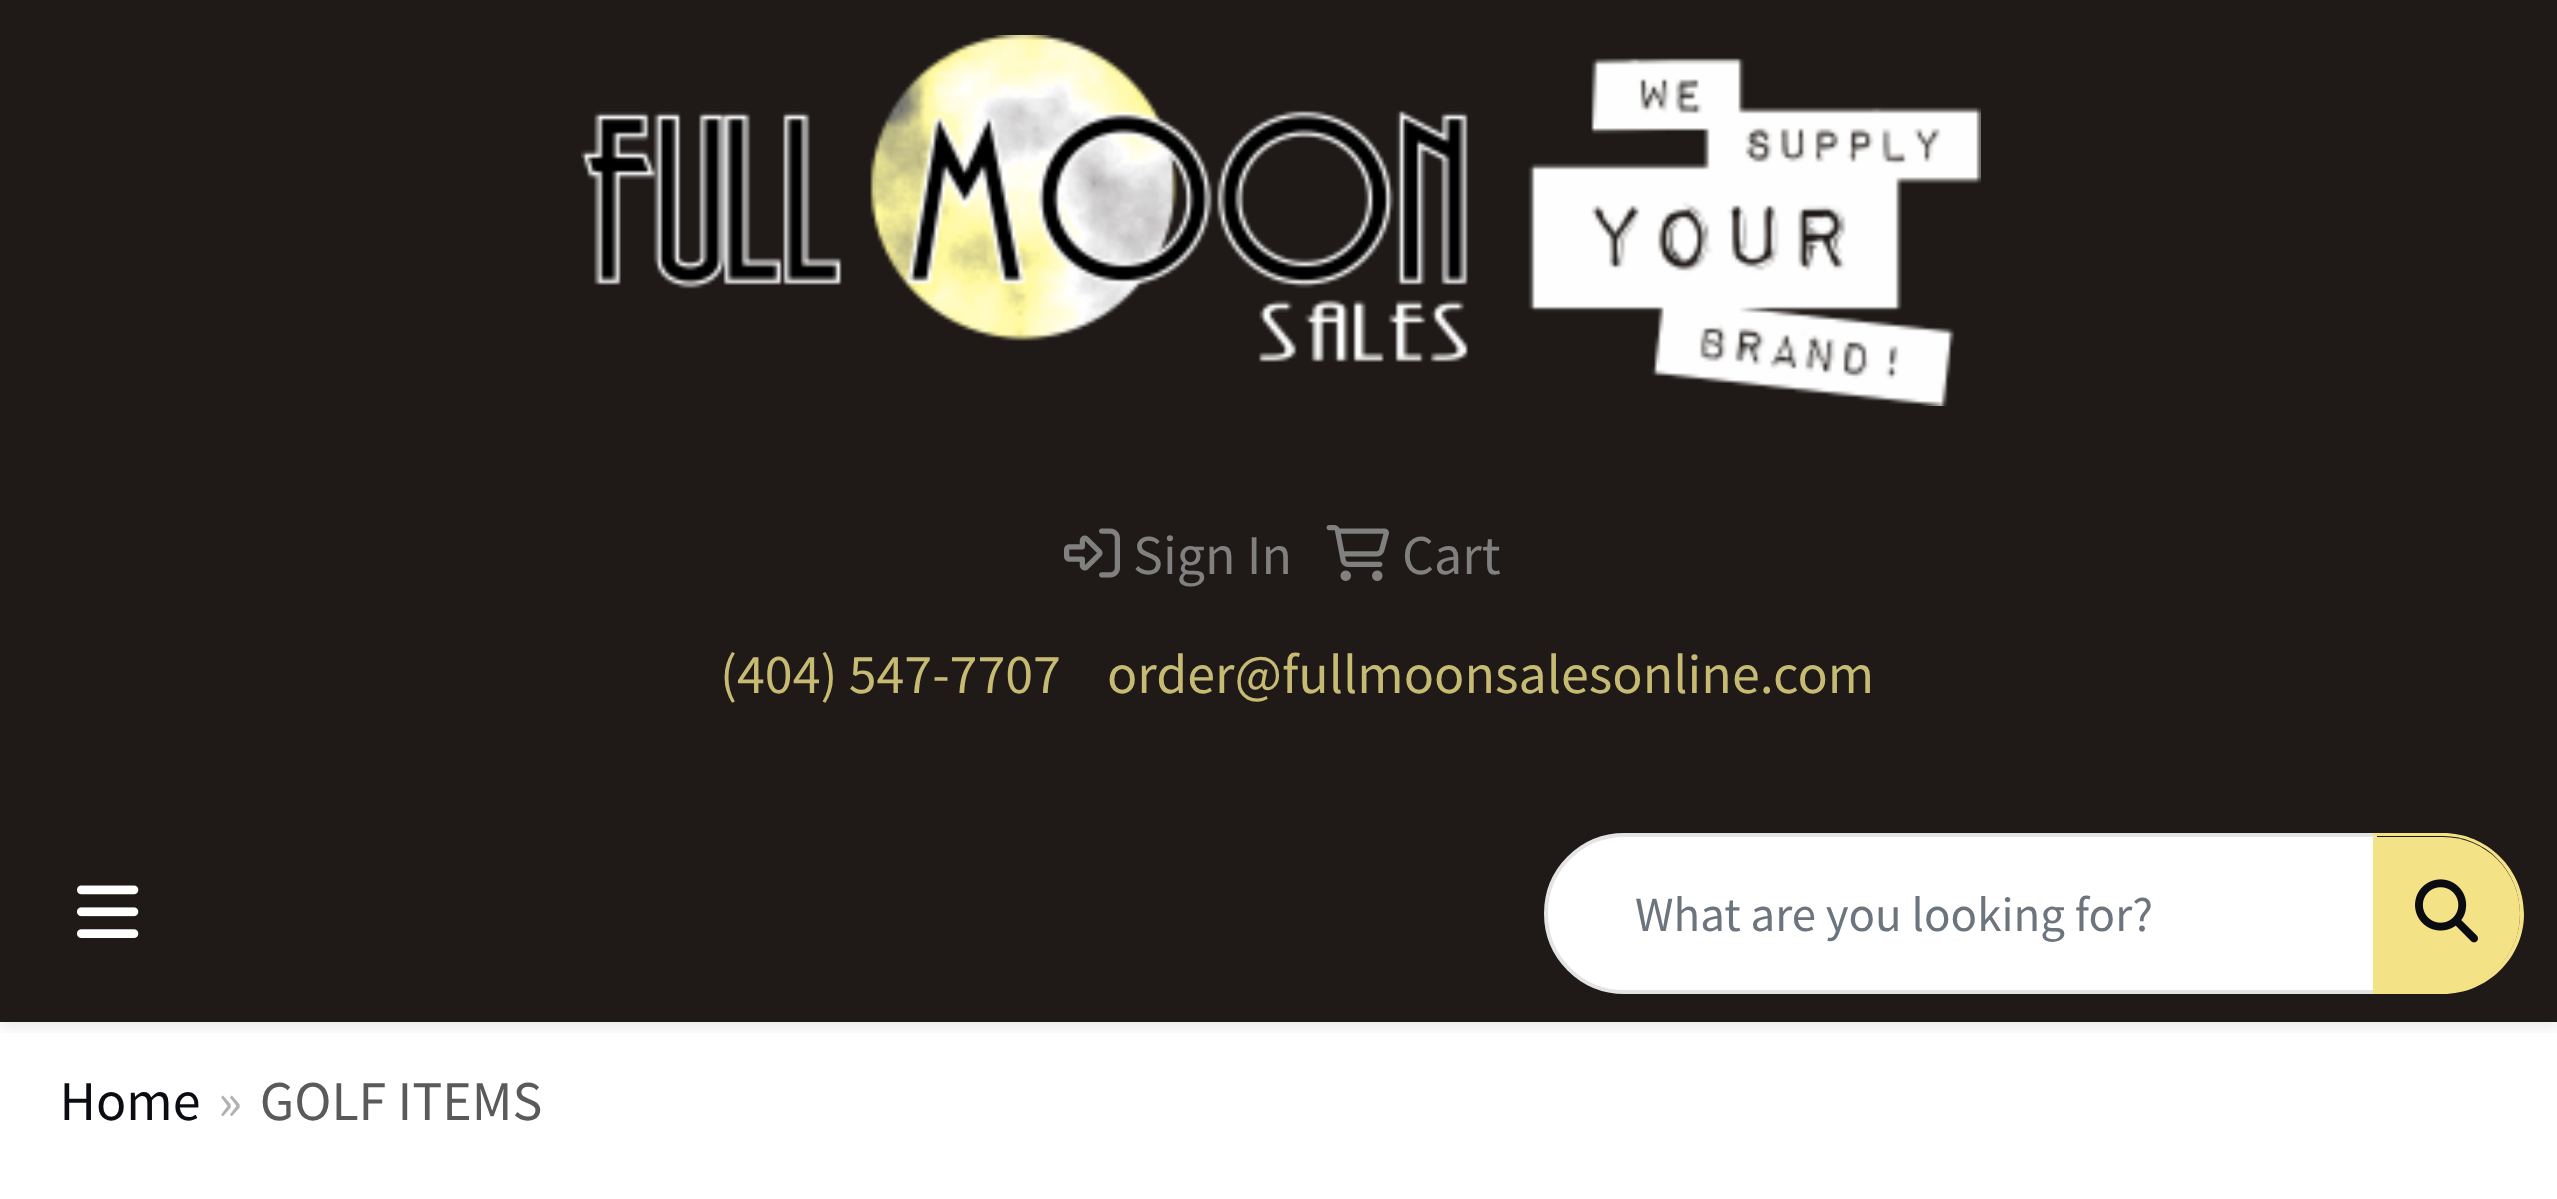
<svg xmlns="http://www.w3.org/2000/svg" width="2557" height="1199">
	<defs>
		<clipPath id="clip1"><rect x="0" y="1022" width="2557" height="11" /></clipPath>
	</defs>
	<rect width="100%" height="100%" fill="#FFFFFF" />
	<rect x="0" y="0" width="2557" height="1022" fill="#1F1A17" />
	<image x="581" y="35" width="1400" height="371" href="assets/img1.png" />
	<image x="1064" y="528" width="56" height="50" href="assets/img2.png" />
	<text x="1133" y="574" font-family="Source Sans Pro" font-size="56" fill="#808080">Sign In</text>
	<image x="1326" y="525" width="63" height="56" href="assets/img3.png" />
	<text x="1402" y="574" font-family="Source Sans Pro" font-size="56" fill="#808080">Cart</text>
	<g font-family="Source Sans Pro" font-size="56" fill="#C7BA73">
		<text x="720" y="693">(404) 547-7707</text>
		<text x="1107" y="693">order@fullmoonsalesonline.com</text>
	</g>
	<g clip-path="url(#clip1)">
		<rect x="0" y="812" width="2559" height="217" fill="#000000" fill-opacity="0.07" filter="blur(7px)" />
	</g>
	<image x="77" y="885" width="62" height="53" href="assets/img4.png" />
	<path d="M1624.5 835H2375V992H1624.5C1581 992 1546 957 1546 913.5C1546 870 1581 835 1624.5 835Z" fill="#FFFFFF" stroke="#E4E4E4" stroke-width="4" />
	<text x="1635" y="931" font-family="Source Sans Pro" font-size="49" fill="#6C757D">What are you looking for?</text>
	<path d="M2373 837H2443C2485.5 837 2520 871.5 2520 914C2520 956.5 2485.5 991 2443 991H2373Z" fill="#F4E287" />
	<path d="M2373 833H2443C2487 833 2524 869 2524 914C2524 958 2487 994 2443 994H2373ZM2373 836H2443C2486 836 2520 871 2520 914C2520 956 2486 990 2443 990H2373Z" fill="#F4E287" fill-rule="evenodd" />
	<image x="2415" y="879" width="63" height="64" href="assets/img5.png" />
	<image x="64" y="1082" width="477" height="39" href="assets/img6.png" />
</svg>
